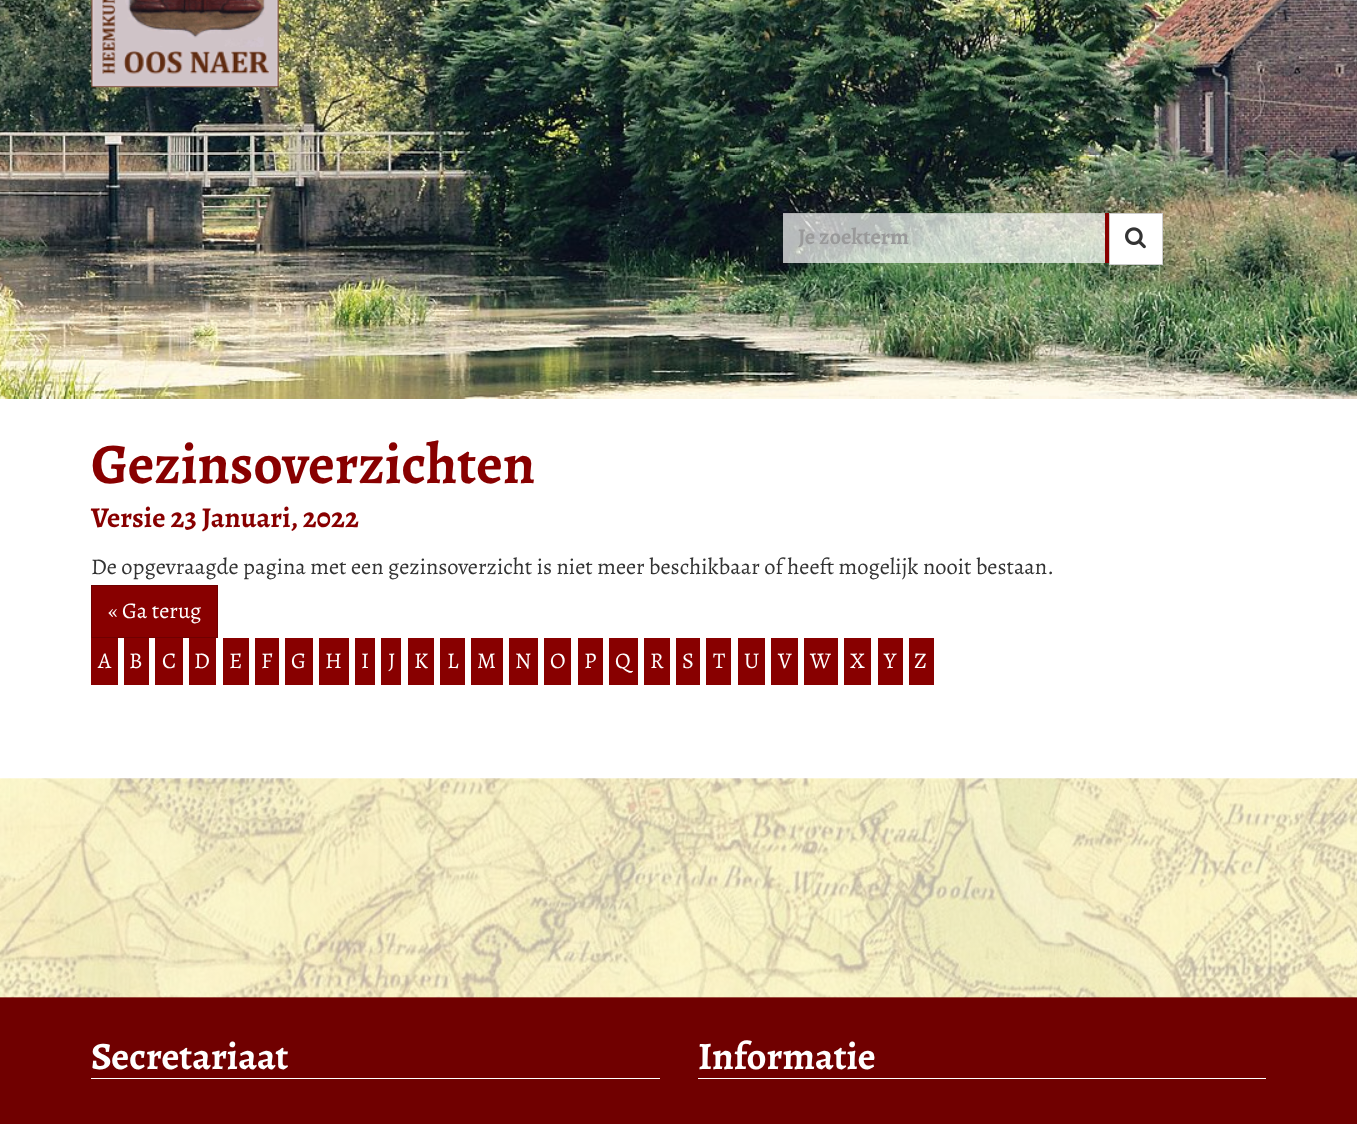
<svg xmlns="http://www.w3.org/2000/svg" width="1357" height="1124">
	<rect width="100%" height="100%" fill="#FFFFFF" />
	<image x="0" y="0" width="1357" height="399" href="assets/img1.png" />
	<image x="91" y="0" width="188" height="88" href="assets/img2.png" />
	<rect x="783" y="213" width="322" height="50" fill="#FFFFFF" fill-opacity="0.7" />
	<rect x="783" y="213" width="322" height="1" fill="#000000" fill-opacity="0.07" />
	<rect x="1105" y="213" width="4" height="50" fill="#880000" />
	<text x="798" y="244" font-family="Alegreya" font-size="22.5" font-weight="700" fill="#999999">Je zoekterm</text>
	<rect x="1109.5" y="213.5" width="53" height="51" fill="#FFFFFF" stroke="#CCCCCC" />
	<image x="1125" y="227" width="21" height="22" href="assets/img3.png" />
	<text x="91" y="483" font-family="Alegreya" font-size="57.5" font-weight="700" fill="#880000">Gezinsoverzichten</text>
	<text x="91" y="527" font-family="Alegreya" font-size="28.75" font-weight="700" fill="#880000">Versie 23 Januari, 2022</text>
	<text x="91" y="574" font-family="Alegreya" font-size="22.5" fill="#333333">De opgevraagde pagina met een gezinsoverzicht is niet meer beschikbaar of heeft mogelijk nooit bestaan.</text>
	<rect x="91.5" y="585.5" width="126" height="52" fill="#880000" stroke="#6F0000" />
	<text x="108" y="618" font-family="Alegreya" font-size="22.5" fill="#FFFFFF">« Ga terug</text>
	<rect x="91" y="638" width="27" height="47" fill="#880000" />
	<text x="98" y="668" font-family="Alegreya" font-size="22.5" fill="#FFFFFF">A</text>
	<rect x="124" y="638" width="25" height="47" fill="#880000" />
	<text x="129" y="668" font-family="Alegreya" font-size="22.5" fill="#FFFFFF">B</text>
	<rect x="155" y="638" width="28" height="47" fill="#880000" />
	<text x="162" y="668" font-family="Alegreya" font-size="22.5" fill="#FFFFFF">C</text>
	<rect x="189" y="638" width="27" height="47" fill="#880000" />
	<text x="194" y="668" font-family="Alegreya" font-size="22.5" fill="#FFFFFF">D</text>
	<rect x="223" y="638" width="26" height="47" fill="#880000" />
	<text x="229" y="668" font-family="Alegreya" font-size="22.5" fill="#FFFFFF">E</text>
	<rect x="255" y="638" width="24" height="47" fill="#880000" />
	<text x="261" y="668" font-family="Alegreya" font-size="22.5" fill="#FFFFFF">F</text>
	<rect x="285" y="638" width="28" height="47" fill="#880000" />
	<text x="291" y="668" font-family="Alegreya" font-size="22.5" fill="#FFFFFF">G</text>
	<rect x="319" y="638" width="30" height="47" fill="#880000" />
	<text x="325" y="668" font-family="Alegreya" font-size="22.5" fill="#FFFFFF">H</text>
	<rect x="355" y="638" width="20" height="47" fill="#880000" />
	<text x="361" y="668" font-family="Alegreya" font-size="22.5" fill="#FFFFFF">I</text>
	<rect x="381" y="638" width="20" height="47" fill="#880000" />
	<text x="388" y="668" font-family="Alegreya" font-size="22.5" fill="#FFFFFF">J</text>
	<rect x="408" y="638" width="26" height="47" fill="#880000" />
	<text x="414" y="668" font-family="Alegreya" font-size="22.5" fill="#FFFFFF">K</text>
	<rect x="440" y="638" width="25" height="47" fill="#880000" />
	<text x="447" y="668" font-family="Alegreya" font-size="22.5" fill="#FFFFFF">L</text>
	<rect x="471" y="638" width="32" height="47" fill="#880000" />
	<text x="477" y="668" font-family="Alegreya" font-size="22.5" fill="#FFFFFF">M</text>
	<rect x="509" y="638" width="29" height="47" fill="#880000" />
	<text x="515" y="668" font-family="Alegreya" font-size="22.5" fill="#FFFFFF">N</text>
	<rect x="544" y="638" width="27" height="47" fill="#880000" />
	<text x="550" y="668" font-family="Alegreya" font-size="22.5" fill="#FFFFFF">O</text>
	<rect x="578" y="638" width="25" height="47" fill="#880000" />
	<text x="584" y="668" font-family="Alegreya" font-size="22.5" fill="#FFFFFF">P</text>
	<rect x="609" y="638" width="29" height="47" fill="#880000" />
	<text x="615" y="668" font-family="Alegreya" font-size="22.5" fill="#FFFFFF">Q</text>
	<rect x="644" y="638" width="26" height="47" fill="#880000" />
	<text x="650" y="668" font-family="Alegreya" font-size="22.5" fill="#FFFFFF">R</text>
	<rect x="676" y="638" width="24" height="47" fill="#880000" />
	<text x="682" y="668" font-family="Alegreya" font-size="22.5" fill="#FFFFFF">S</text>
	<rect x="706" y="638" width="25" height="47" fill="#880000" />
	<text x="713" y="668" font-family="Alegreya" font-size="22.5" fill="#FFFFFF">T</text>
	<rect x="738" y="638" width="27" height="47" fill="#880000" />
	<text x="744" y="668" font-family="Alegreya" font-size="22.5" fill="#FFFFFF">U</text>
	<rect x="771" y="638" width="27" height="47" fill="#880000" />
	<text x="778" y="668" font-family="Alegreya" font-size="22.5" fill="#FFFFFF">V</text>
	<rect x="804" y="638" width="34" height="47" fill="#880000" />
	<text x="810" y="668" font-family="Alegreya" font-size="22.5" fill="#FFFFFF">W</text>
	<rect x="844" y="638" width="27" height="47" fill="#880000" />
	<text x="850" y="668" font-family="Alegreya" font-size="22.5" fill="#FFFFFF">X</text>
	<rect x="878" y="638" width="25" height="47" fill="#880000" />
	<text x="884" y="668" font-family="Alegreya" font-size="22.5" fill="#FFFFFF">Y</text>
	<rect x="909" y="638" width="25" height="47" fill="#880000" />
	<text x="914" y="668" font-family="Alegreya" font-size="22.5" fill="#FFFFFF">Z</text>
	<rect x="0" y="997" width="1357" height="127" fill="#700000" />
	<image x="0" y="778" width="1357" height="220" href="assets/img4.png" />
	<rect x="91" y="1078" width="569" height="1" fill="#FFFFFF" />
	<text x="91" y="1069" font-family="Alegreya" font-size="38.75" font-weight="700" fill="#FFFFFF">Secretariaat</text>
	<rect x="698" y="1078" width="568" height="1" fill="#FFFFFF" />
	<text x="698" y="1069" font-family="Alegreya" font-size="38.75" font-weight="700" fill="#FFFFFF">Informatie</text>
</svg>
